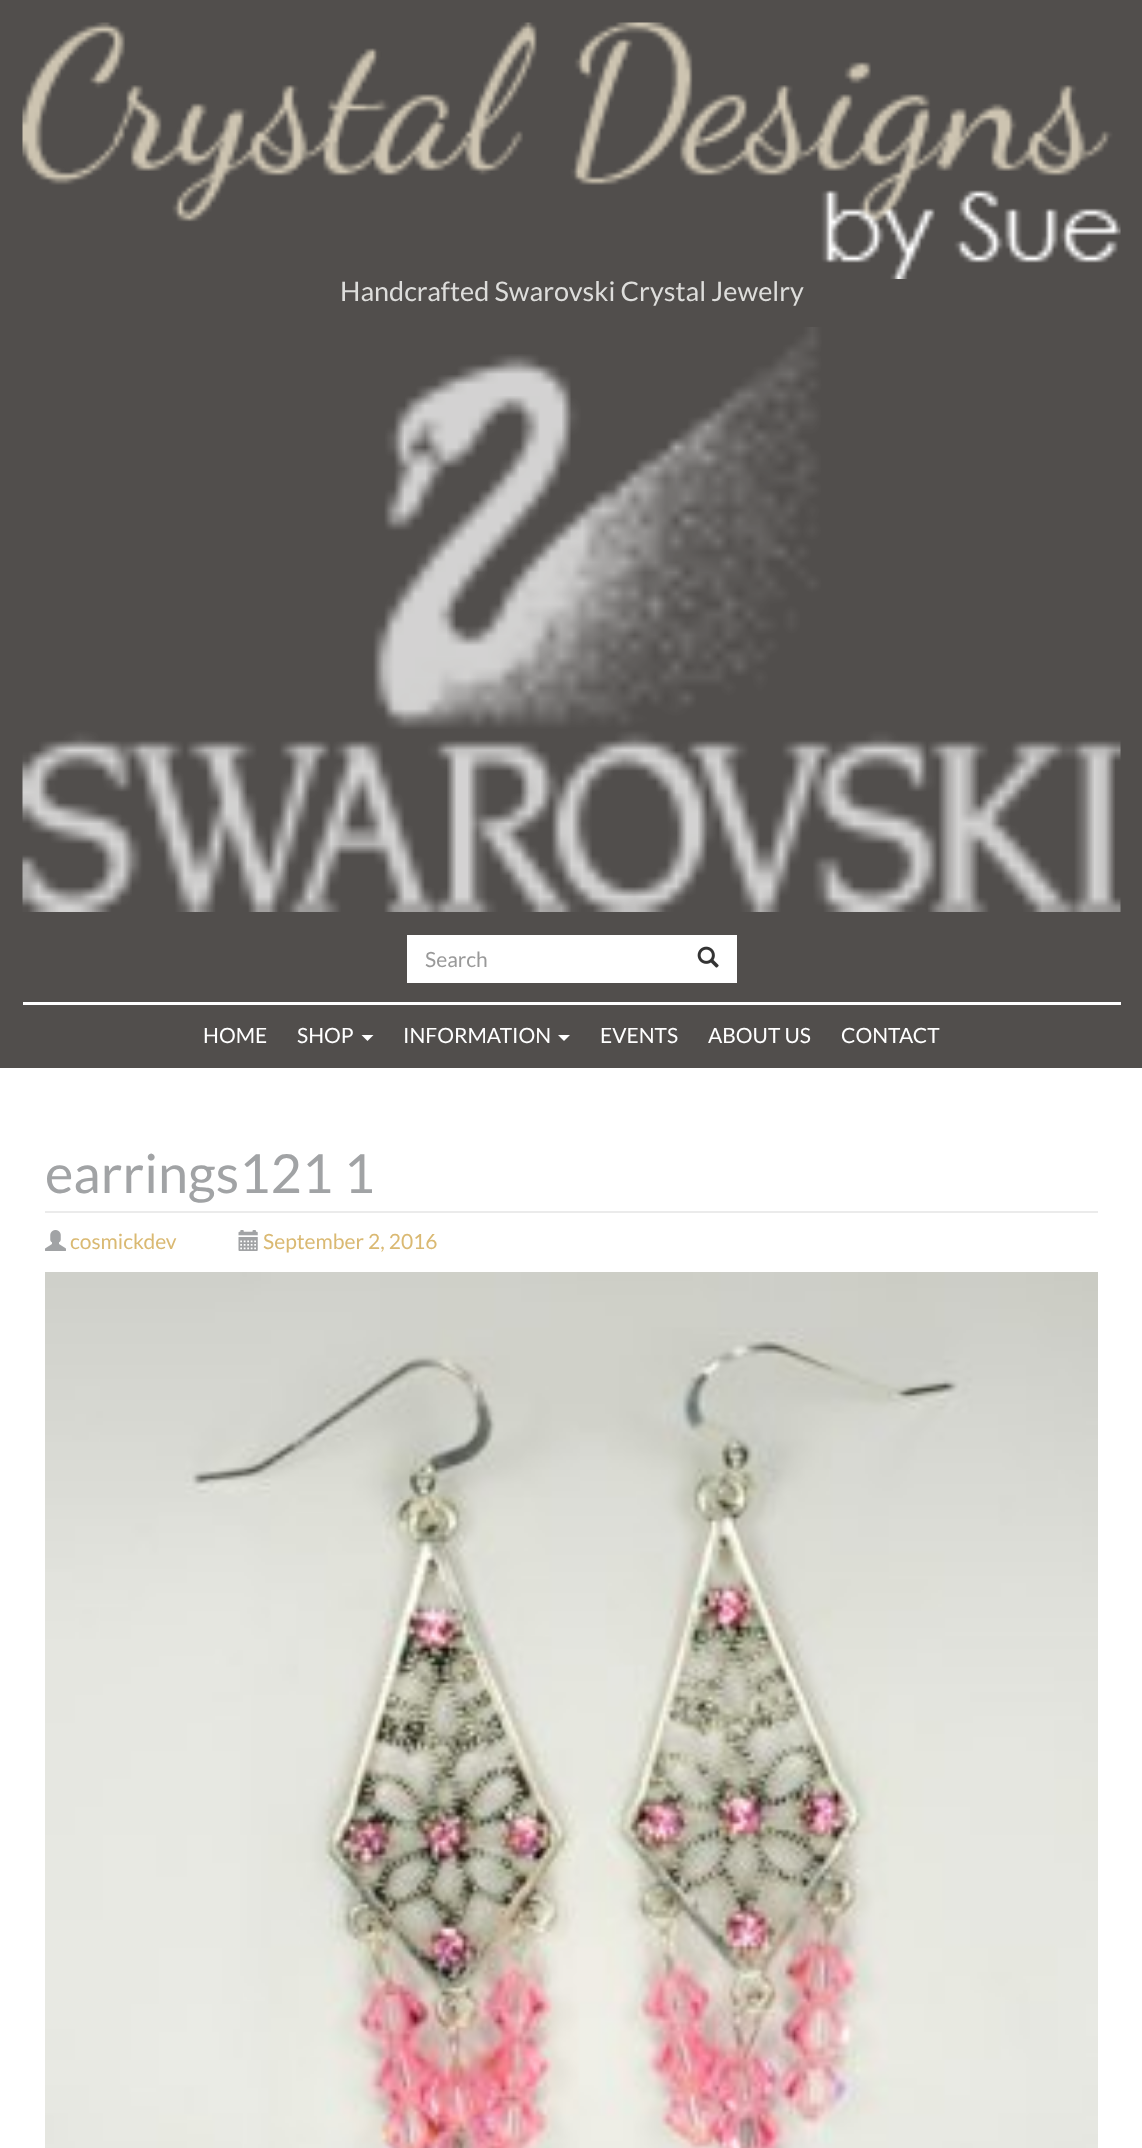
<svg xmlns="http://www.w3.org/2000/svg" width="1142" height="2148">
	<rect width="100%" height="100%" fill="#FFFFFF" />
	<rect x="0" y="0" width="1142" height="1068" fill="#514E4C" />
	<image x="22" y="22" width="1099" height="257" href="assets/img1.png" />
	<text x="340" y="301" font-family="Lato" font-size="27" fill="#DDDDDB">Handcrafted Swarovski Crystal Jewelry</text>
	<image x="22" y="327" width="1099" height="585" href="assets/img2.png" />
	<rect x="407" y="935" width="330" height="48" fill="#FFFFFF" />
	<text x="425" y="967" font-family="Lato" font-size="21" fill="#999999">Search</text>
	<image x="697" y="946" width="22" height="22" href="assets/img3.png" />
	<rect x="23" y="1002" width="1098" height="3" fill="#FFFFFF" />
	<g font-family="Lato" font-size="21" fill="#FFFFFF">
		<text x="203" y="1043">HOME</text>
		<text x="297" y="1043">SHOP</text>
	</g>
	<path d="M361.5 1035H373.5L367.5 1041Z" fill="#FFFFFF" />
	<text x="403" y="1043" font-family="Lato" font-size="21" fill="#FFFFFF">INFORMATION</text>
	<path d="M558 1035H570L564 1041Z" fill="#FFFFFF" />
	<g font-family="Lato" font-size="21" fill="#FFFFFF">
		<text x="600" y="1043">EVENTS</text>
		<text x="708" y="1043">ABOUT US</text>
		<text x="841" y="1043">CONTACT</text>
	</g>
	<rect x="45" y="1211" width="1053" height="2" fill="#EBEBEB" />
	<text x="45" y="1193" font-family="Lato" font-size="54" fill="#A1A3A5">earrings121 1</text>
	<image x="45" y="1230" width="21" height="21" href="assets/img4.png" />
	<text x="70" y="1249" font-family="Lato" font-size="21" fill="#DAB972">cosmickdev</text>
	<image x="238" y="1230" width="20" height="21" href="assets/img5.png" />
	<text x="263" y="1249" font-family="Lato" font-size="21" fill="#DAB972">September 2, 2016</text>
	<image x="45" y="1272" width="1053" height="876" href="assets/img6.png" />
</svg>
